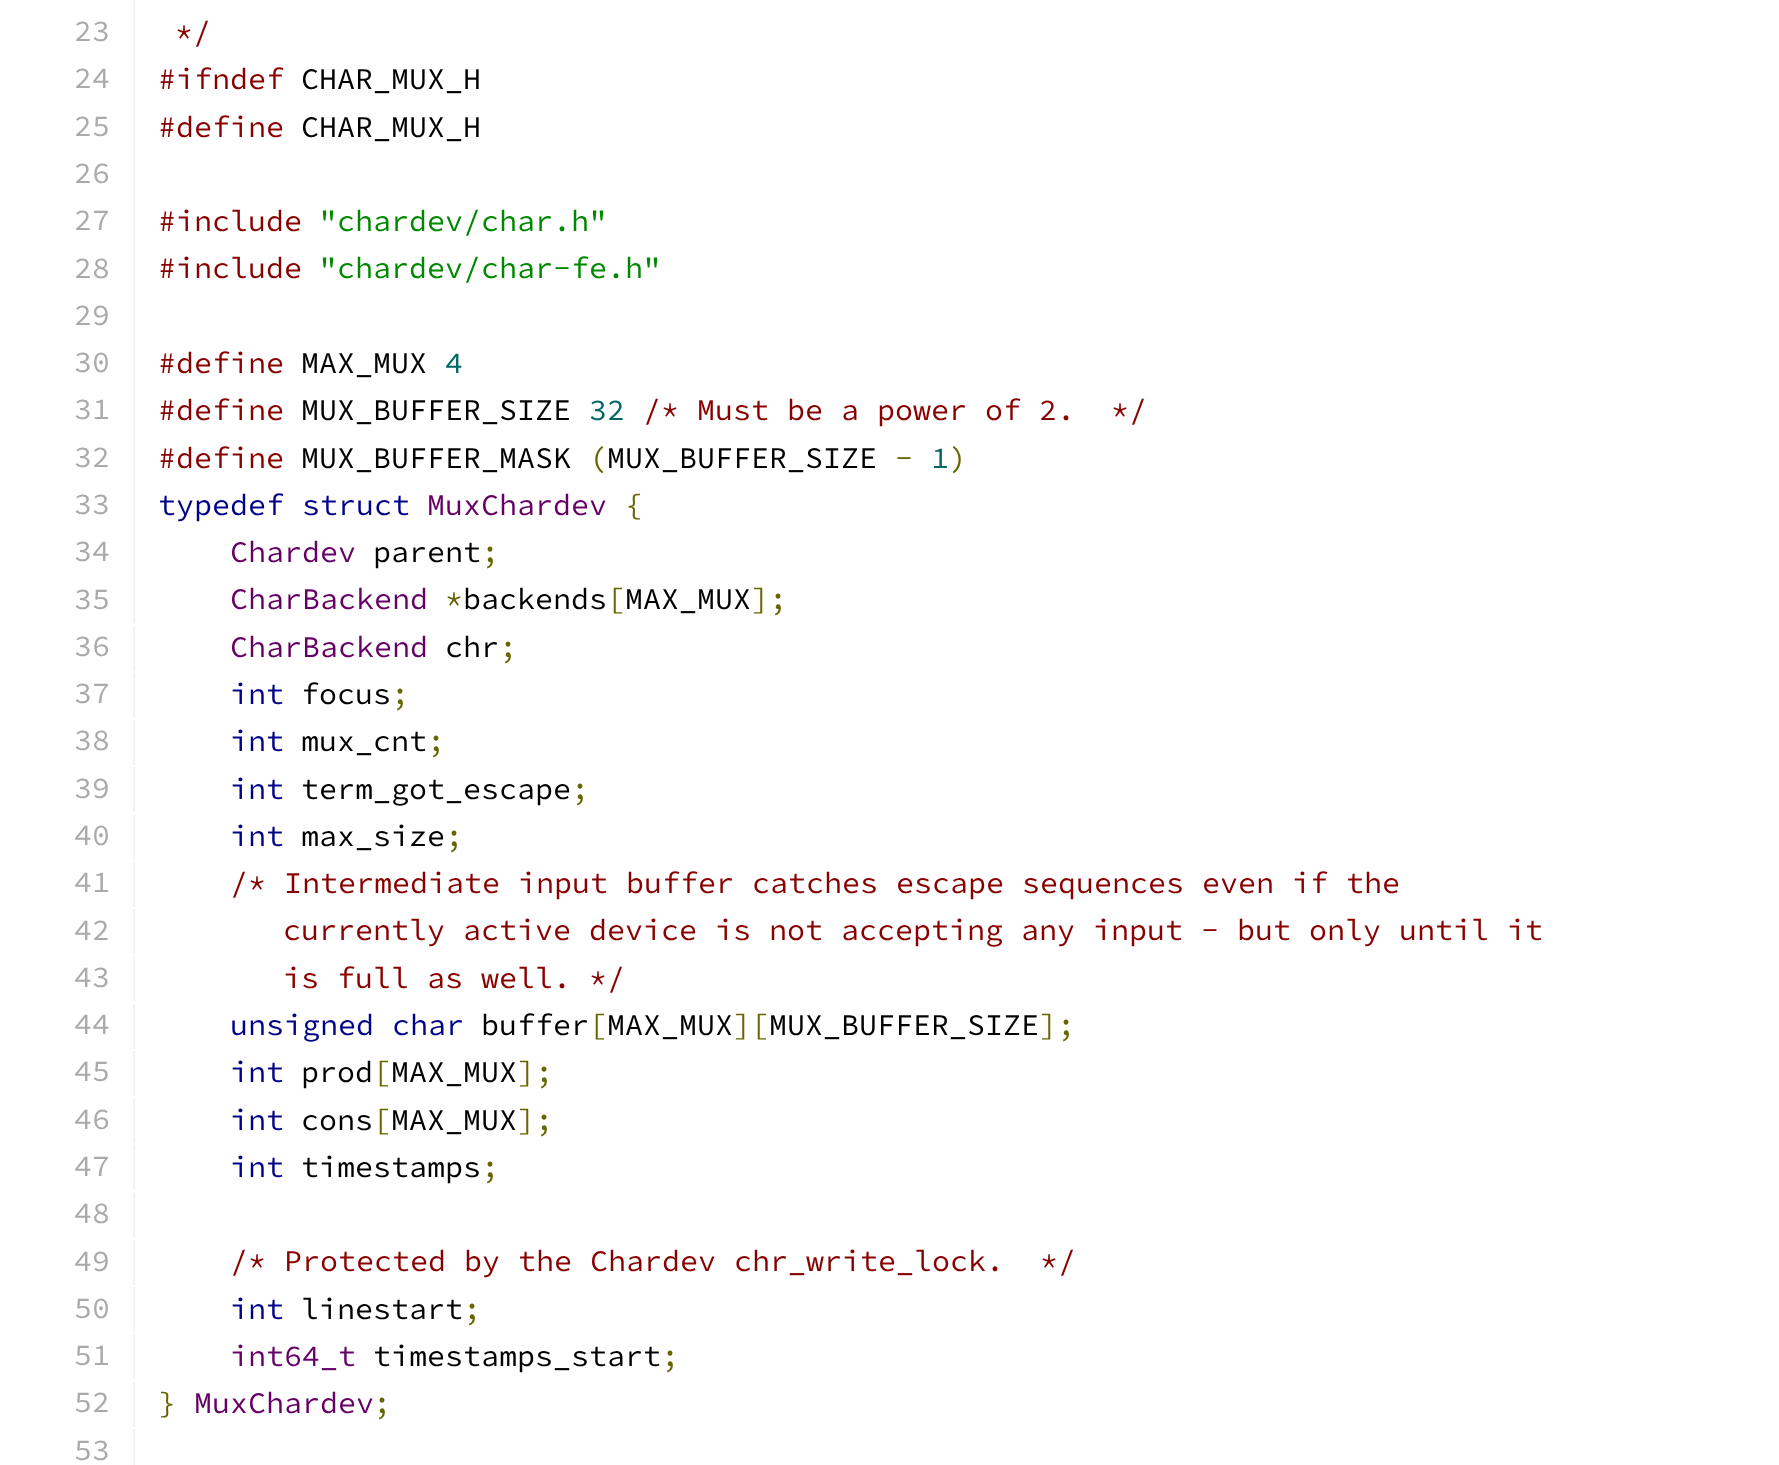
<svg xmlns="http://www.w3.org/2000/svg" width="1779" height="1465">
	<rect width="100%" height="100%" fill="#FFFFFF" />
	<rect x="133" y="0" width="2" height="623" fill="#F1F2F3" />
	<text x="74" y="41" font-family="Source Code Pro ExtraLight" font-size="30" font-weight="200" fill="#AAAAAA">23</text>
	<text x="175" y="42" font-family="Source Code Pro ExtraLight" font-size="30" font-weight="200" fill="#880000">*/</text>
	<text x="74" y="88" font-family="Source Code Pro ExtraLight" font-size="30" font-weight="200" fill="#AAAAAA">24</text>
	<text x="158" y="89" font-family="Source Code Pro ExtraLight" font-size="30" font-weight="200" fill="#880000">#ifndef</text>
	<text x="301" y="89" font-family="Source Code Pro ExtraLight" font-size="30" font-weight="200" fill="#000000">CHAR_MUX_H</text>
	<text x="74" y="136" font-family="Source Code Pro ExtraLight" font-size="30" font-weight="200" fill="#AAAAAA">25</text>
	<text x="158" y="137" font-family="Source Code Pro ExtraLight" font-size="30" font-weight="200" fill="#880000">#define</text>
	<text x="301" y="137" font-family="Source Code Pro ExtraLight" font-size="30" font-weight="200" fill="#000000">CHAR_MUX_H</text>
	<g font-family="Source Code Pro ExtraLight" font-size="30" font-weight="200" fill="#AAAAAA">
		<text x="74" y="183">26</text>
		<text x="74" y="230">27</text>
	</g>
	<text x="158" y="231" font-family="Source Code Pro ExtraLight" font-size="30" font-weight="200" fill="#880000">#include</text>
	<text x="319" y="231" font-family="Source Code Pro ExtraLight" font-size="30" font-weight="200" fill="#008800">"chardev/char.h"</text>
	<text x="74" y="278" font-family="Source Code Pro ExtraLight" font-size="30" font-weight="200" fill="#AAAAAA">28</text>
	<text x="158" y="278" font-family="Source Code Pro ExtraLight" font-size="30" font-weight="200" fill="#880000">#include</text>
	<text x="319" y="278" font-family="Source Code Pro ExtraLight" font-size="30" font-weight="200" fill="#008800">"chardev/char-fe.h"</text>
	<g font-family="Source Code Pro ExtraLight" font-size="30" font-weight="200" fill="#AAAAAA">
		<text x="74" y="325">29</text>
		<text x="74" y="372">30</text>
	</g>
	<text x="158" y="373" font-family="Source Code Pro ExtraLight" font-size="30" font-weight="200" fill="#880000">#define</text>
	<text x="301" y="373" font-family="Source Code Pro ExtraLight" font-size="30" font-weight="200" fill="#000000">MAX_MUX</text>
	<text x="445" y="373" font-family="Source Code Pro ExtraLight" font-size="30" font-weight="200" fill="#006666">4</text>
	<text x="74" y="419" font-family="Source Code Pro ExtraLight" font-size="30" font-weight="200" fill="#AAAAAA">31</text>
	<text x="158" y="420" font-family="Source Code Pro ExtraLight" font-size="30" font-weight="200" fill="#880000">#define</text>
	<text x="301" y="420" font-family="Source Code Pro ExtraLight" font-size="30" font-weight="200" fill="#000000">MUX_BUFFER_SIZE</text>
	<text x="589" y="420" font-family="Source Code Pro ExtraLight" font-size="30" font-weight="200" fill="#006666">32</text>
	<text x="643" y="420" font-family="Source Code Pro ExtraLight" font-size="30" font-weight="200" fill="#880000" xml:space="preserve">/* Must be a power of 2.  */</text>
	<text x="74" y="467" font-family="Source Code Pro ExtraLight" font-size="30" font-weight="200" fill="#AAAAAA">32</text>
	<text x="158" y="468" font-family="Source Code Pro ExtraLight" font-size="30" font-weight="200" fill="#880000">#define</text>
	<text x="301" y="468" font-family="Source Code Pro ExtraLight" font-size="30" font-weight="200" fill="#000000">MUX_BUFFER_MASK</text>
	<text x="589" y="468" font-family="Source Code Pro ExtraLight" font-size="30" font-weight="200" fill="#666600">(</text>
	<text x="607" y="468" font-family="Source Code Pro ExtraLight" font-size="30" font-weight="200" fill="#000000">MUX_BUFFER_SIZE</text>
	<text x="895" y="468" font-family="Source Code Pro ExtraLight" font-size="30" font-weight="200" fill="#666600">-</text>
	<text x="931" y="468" font-family="Source Code Pro ExtraLight" font-size="30" font-weight="200" fill="#006666">1</text>
	<text x="949" y="468" font-family="Source Code Pro ExtraLight" font-size="30" font-weight="200" fill="#666600">)</text>
	<text x="74" y="514" font-family="Source Code Pro ExtraLight" font-size="30" font-weight="200" fill="#AAAAAA">33</text>
	<text x="158" y="515" font-family="Source Code Pro ExtraLight" font-size="30" font-weight="200" fill="#000088">typedef struct</text>
	<text x="427" y="515" font-family="Source Code Pro ExtraLight" font-size="30" font-weight="200" fill="#660066">MuxChardev</text>
	<text x="625" y="515" font-family="Source Code Pro ExtraLight" font-size="30" font-weight="200" fill="#666600">{</text>
	<text x="74" y="561" font-family="Source Code Pro ExtraLight" font-size="30" font-weight="200" fill="#AAAAAA">34</text>
	<text x="230" y="562" font-family="Source Code Pro ExtraLight" font-size="30" font-weight="200" fill="#660066">Chardev</text>
	<text x="373" y="562" font-family="Source Code Pro ExtraLight" font-size="30" font-weight="200" fill="#000000">parent</text>
	<text x="481" y="562" font-family="Source Code Pro ExtraLight" font-size="30" font-weight="200" fill="#666600">;</text>
	<text x="74" y="609" font-family="Source Code Pro ExtraLight" font-size="30" font-weight="200" fill="#AAAAAA">35</text>
	<text x="230" y="609" font-family="Source Code Pro ExtraLight" font-size="30" font-weight="200" fill="#660066">CharBackend</text>
	<text x="463" y="609" font-family="Source Code Pro ExtraLight" font-size="30" font-weight="200" fill="#000000">backends MAX_MUX</text>
	<g font-family="Source Code Pro ExtraLight" font-size="30" font-weight="200" fill="#666600">
		<text x="445" y="609">*</text>
		<text x="607" y="609">[</text>
		<text x="751" y="609">];</text>
	</g>
	<rect x="133" y="626" width="2" height="45" fill="#F1F2F3" />
	<text x="74" y="656" font-family="Source Code Pro ExtraLight" font-size="30" font-weight="200" fill="#AAAAAA">36</text>
	<text x="230" y="657" font-family="Source Code Pro ExtraLight" font-size="30" font-weight="200" fill="#660066">CharBackend</text>
	<text x="445" y="657" font-family="Source Code Pro ExtraLight" font-size="30" font-weight="200" fill="#000000">chr</text>
	<text x="499" y="657" font-family="Source Code Pro ExtraLight" font-size="30" font-weight="200" fill="#666600">;</text>
	<rect x="133" y="673" width="2" height="45" fill="#F1F2F3" />
	<text x="74" y="703" font-family="Source Code Pro ExtraLight" font-size="30" font-weight="200" fill="#AAAAAA">37</text>
	<text x="230" y="704" font-family="Source Code Pro ExtraLight" font-size="30" font-weight="200" fill="#000088">int</text>
	<text x="301" y="704" font-family="Source Code Pro ExtraLight" font-size="30" font-weight="200" fill="#000000">focus</text>
	<text x="391" y="704" font-family="Source Code Pro ExtraLight" font-size="30" font-weight="200" fill="#666600">;</text>
	<rect x="133" y="720" width="2" height="45" fill="#F1F2F3" />
	<text x="74" y="750" font-family="Source Code Pro ExtraLight" font-size="30" font-weight="200" fill="#AAAAAA">38</text>
	<text x="230" y="751" font-family="Source Code Pro ExtraLight" font-size="30" font-weight="200" fill="#000088">int</text>
	<text x="301" y="751" font-family="Source Code Pro ExtraLight" font-size="30" font-weight="200" fill="#000000">mux_cnt</text>
	<text x="427" y="751" font-family="Source Code Pro ExtraLight" font-size="30" font-weight="200" fill="#666600">;</text>
	<rect x="133" y="767" width="2" height="45" fill="#F1F2F3" />
	<text x="74" y="798" font-family="Source Code Pro ExtraLight" font-size="30" font-weight="200" fill="#AAAAAA">39</text>
	<text x="230" y="799" font-family="Source Code Pro ExtraLight" font-size="30" font-weight="200" fill="#000088">int</text>
	<text x="301" y="799" font-family="Source Code Pro ExtraLight" font-size="30" font-weight="200" fill="#000000">term_got_escape</text>
	<text x="571" y="799" font-family="Source Code Pro ExtraLight" font-size="30" font-weight="200" fill="#666600">;</text>
	<rect x="133" y="815" width="2" height="45" fill="#F1F2F3" />
	<text x="74" y="845" font-family="Source Code Pro ExtraLight" font-size="30" font-weight="200" fill="#AAAAAA">40</text>
	<text x="230" y="846" font-family="Source Code Pro ExtraLight" font-size="30" font-weight="200" fill="#000088">int</text>
	<text x="301" y="846" font-family="Source Code Pro ExtraLight" font-size="30" font-weight="200" fill="#000000">max_size</text>
	<text x="445" y="846" font-family="Source Code Pro ExtraLight" font-size="30" font-weight="200" fill="#666600">;</text>
	<rect x="133" y="862" width="2" height="45" fill="#F1F2F3" />
	<text x="74" y="892" font-family="Source Code Pro ExtraLight" font-size="30" font-weight="200" fill="#AAAAAA">41</text>
	<text x="230" y="893" font-family="Source Code Pro ExtraLight" font-size="30" font-weight="200" fill="#880000">/* Intermediate input buffer catches escape sequences even if the</text>
	<rect x="133" y="909" width="2" height="45" fill="#F1F2F3" />
	<text x="74" y="940" font-family="Source Code Pro ExtraLight" font-size="30" font-weight="200" fill="#AAAAAA">42</text>
	<text x="283" y="940" font-family="Source Code Pro ExtraLight" font-size="30" font-weight="200" fill="#880000">currently active device is not accepting any input - but only until it</text>
	<rect x="133" y="956" width="2" height="45" fill="#F1F2F3" />
	<text x="74" y="987" font-family="Source Code Pro ExtraLight" font-size="30" font-weight="200" fill="#AAAAAA">43</text>
	<text x="283" y="988" font-family="Source Code Pro ExtraLight" font-size="30" font-weight="200" fill="#880000">is full as well. */</text>
	<rect x="133" y="1004" width="2" height="45" fill="#F1F2F3" />
	<text x="74" y="1034" font-family="Source Code Pro ExtraLight" font-size="30" font-weight="200" fill="#AAAAAA">44</text>
	<text x="230" y="1035" font-family="Source Code Pro ExtraLight" font-size="30" font-weight="200" fill="#000088">unsigned char</text>
	<text x="481" y="1035" font-family="Source Code Pro ExtraLight" font-size="30" font-weight="200" fill="#000000">buffer MAX_MUX</text>
	<g font-family="Source Code Pro ExtraLight" font-size="30" font-weight="200" fill="#666600">
		<text x="589" y="1035">[</text>
		<text x="733" y="1035">][</text>
	</g>
	<text x="769" y="1035" font-family="Source Code Pro ExtraLight" font-size="30" font-weight="200" fill="#000000">MUX_BUFFER_SIZE</text>
	<text x="1039" y="1035" font-family="Source Code Pro ExtraLight" font-size="30" font-weight="200" fill="#666600">];</text>
	<rect x="133" y="1051" width="2" height="45" fill="#F1F2F3" />
	<text x="74" y="1081" font-family="Source Code Pro ExtraLight" font-size="30" font-weight="200" fill="#AAAAAA">45</text>
	<text x="230" y="1082" font-family="Source Code Pro ExtraLight" font-size="30" font-weight="200" fill="#000088">int</text>
	<text x="301" y="1082" font-family="Source Code Pro ExtraLight" font-size="30" font-weight="200" fill="#000000">prod MAX_MUX</text>
	<g font-family="Source Code Pro ExtraLight" font-size="30" font-weight="200" fill="#666600">
		<text x="373" y="1082">[</text>
		<text x="517" y="1082">];</text>
	</g>
	<rect x="133" y="1098" width="2" height="45" fill="#F1F2F3" />
	<text x="74" y="1129" font-family="Source Code Pro ExtraLight" font-size="30" font-weight="200" fill="#AAAAAA">46</text>
	<text x="230" y="1130" font-family="Source Code Pro ExtraLight" font-size="30" font-weight="200" fill="#000088">int</text>
	<text x="301" y="1130" font-family="Source Code Pro ExtraLight" font-size="30" font-weight="200" fill="#000000">cons MAX_MUX</text>
	<g font-family="Source Code Pro ExtraLight" font-size="30" font-weight="200" fill="#666600">
		<text x="373" y="1130">[</text>
		<text x="517" y="1130">];</text>
	</g>
	<rect x="133" y="1145" width="2" height="45" fill="#F1F2F3" />
	<text x="74" y="1176" font-family="Source Code Pro ExtraLight" font-size="30" font-weight="200" fill="#AAAAAA">47</text>
	<text x="230" y="1177" font-family="Source Code Pro ExtraLight" font-size="30" font-weight="200" fill="#000088">int</text>
	<text x="301" y="1177" font-family="Source Code Pro ExtraLight" font-size="30" font-weight="200" fill="#000000">timestamps</text>
	<text x="481" y="1177" font-family="Source Code Pro ExtraLight" font-size="30" font-weight="200" fill="#666600">;</text>
	<rect x="133" y="1193" width="2" height="45" fill="#F1F2F3" />
	<text x="74" y="1223" font-family="Source Code Pro ExtraLight" font-size="30" font-weight="200" fill="#AAAAAA">48</text>
	<rect x="133" y="1240" width="2" height="45" fill="#F1F2F3" />
	<text x="74" y="1271" font-family="Source Code Pro ExtraLight" font-size="30" font-weight="200" fill="#AAAAAA">49</text>
	<text x="230" y="1271" font-family="Source Code Pro ExtraLight" font-size="30" font-weight="200" fill="#880000" xml:space="preserve">/* Protected by the Chardev chr_write_lock.  */</text>
	<rect x="133" y="1287" width="2" height="45" fill="#F1F2F3" />
	<text x="74" y="1318" font-family="Source Code Pro ExtraLight" font-size="30" font-weight="200" fill="#AAAAAA">50</text>
	<text x="230" y="1319" font-family="Source Code Pro ExtraLight" font-size="30" font-weight="200" fill="#000088">int</text>
	<text x="301" y="1319" font-family="Source Code Pro ExtraLight" font-size="30" font-weight="200" fill="#000000">linestart</text>
	<text x="463" y="1319" font-family="Source Code Pro ExtraLight" font-size="30" font-weight="200" fill="#666600">;</text>
	<rect x="133" y="1334" width="2" height="45" fill="#F1F2F3" />
	<text x="74" y="1365" font-family="Source Code Pro ExtraLight" font-size="30" font-weight="200" fill="#AAAAAA">51</text>
	<text x="230" y="1366" font-family="Source Code Pro ExtraLight" font-size="30" font-weight="200" fill="#660066">int64_t</text>
	<text x="373" y="1366" font-family="Source Code Pro ExtraLight" font-size="30" font-weight="200" fill="#000000">timestamps_start</text>
	<text x="661" y="1366" font-family="Source Code Pro ExtraLight" font-size="30" font-weight="200" fill="#666600">;</text>
	<rect x="133" y="1382" width="2" height="45" fill="#F1F2F3" />
	<text x="74" y="1412" font-family="Source Code Pro ExtraLight" font-size="30" font-weight="200" fill="#AAAAAA">52</text>
	<text x="158" y="1413" font-family="Source Code Pro ExtraLight" font-size="30" font-weight="200" fill="#666600">}</text>
	<text x="194" y="1413" font-family="Source Code Pro ExtraLight" font-size="30" font-weight="200" fill="#660066">MuxChardev</text>
	<text x="373" y="1413" font-family="Source Code Pro ExtraLight" font-size="30" font-weight="200" fill="#666600">;</text>
	<rect x="133" y="1429" width="2" height="36" fill="#F1F2F3" />
	<text x="74" y="1460" font-family="Source Code Pro ExtraLight" font-size="30" font-weight="200" fill="#AAAAAA">53</text>
</svg>
